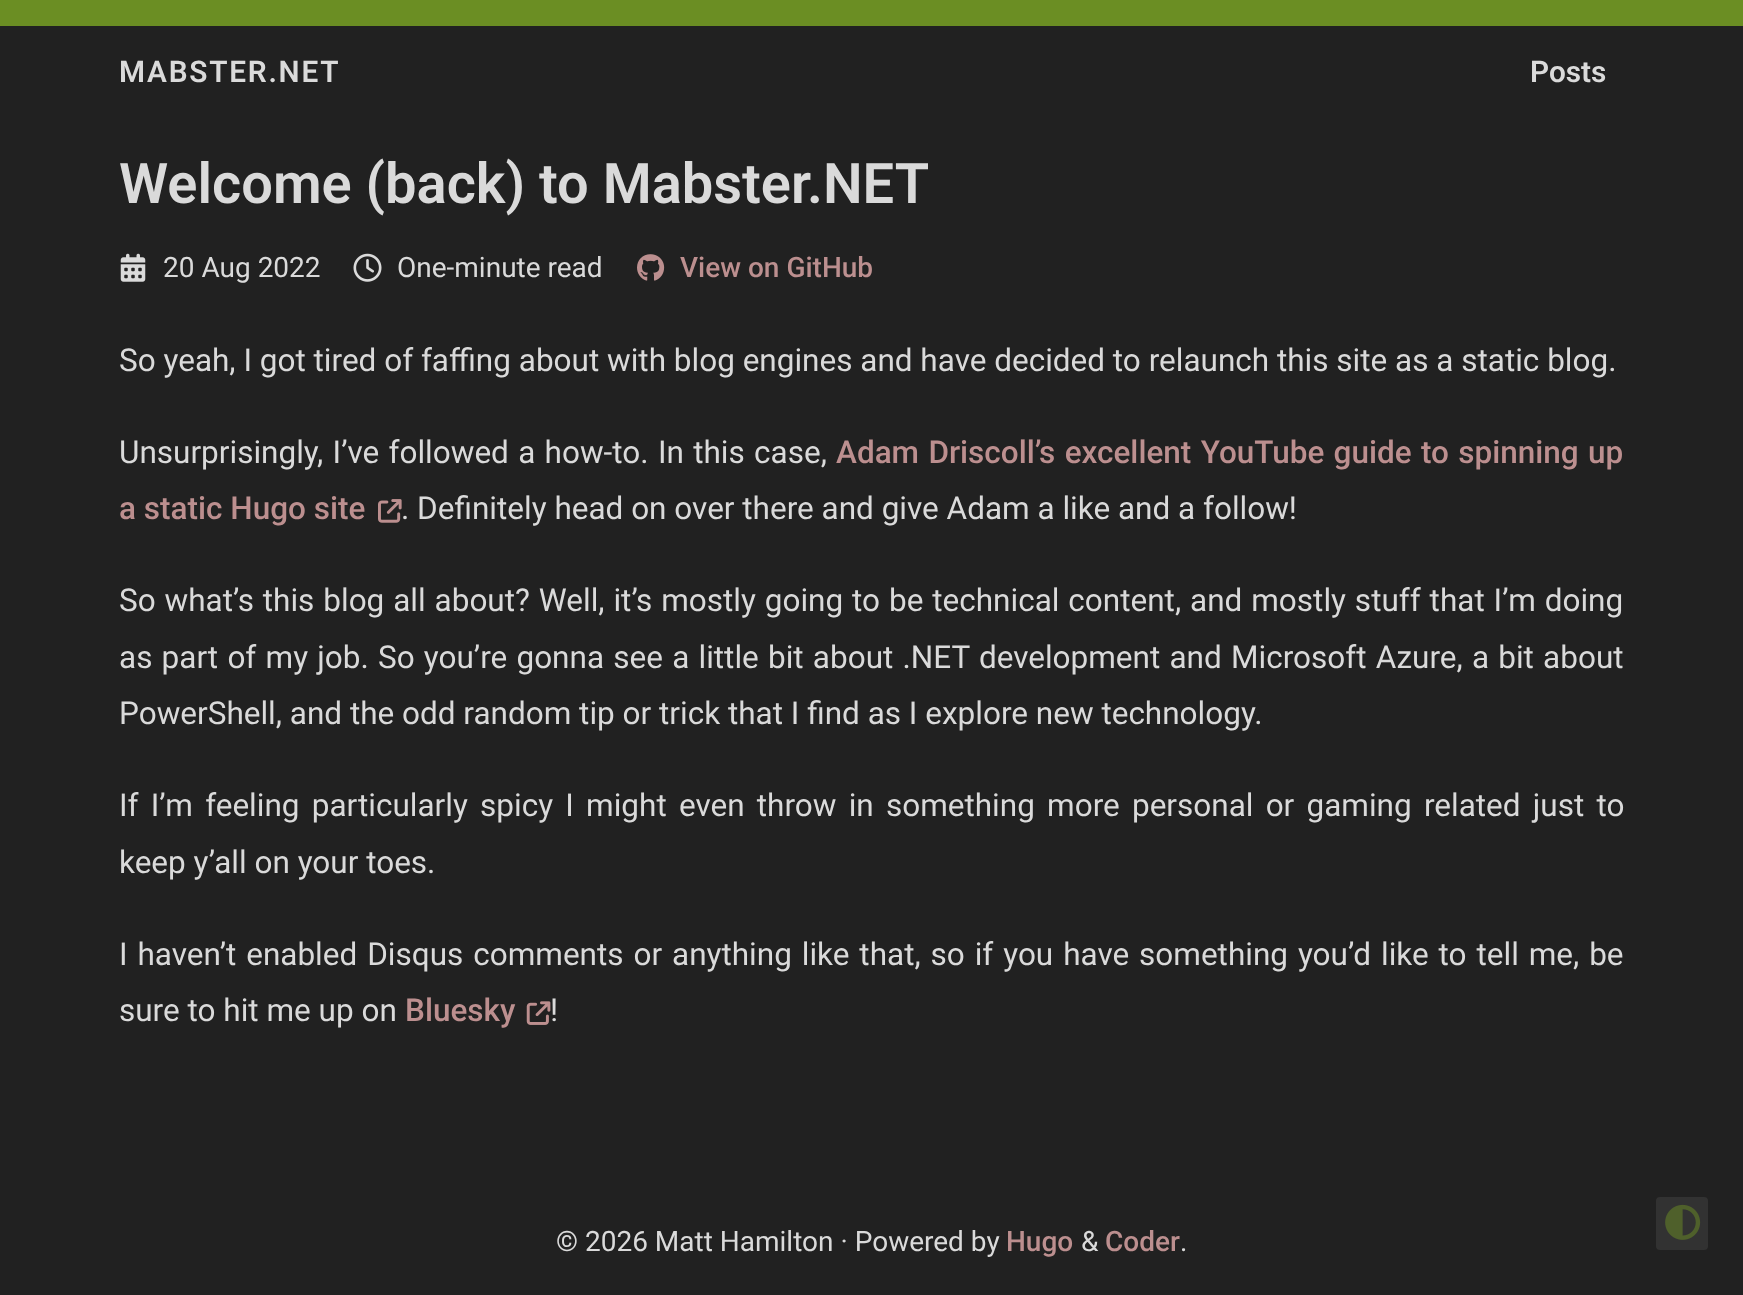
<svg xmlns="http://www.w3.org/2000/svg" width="1743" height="1295">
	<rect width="100%" height="100%" fill="#212121" />
	<rect x="0" y="0" width="1743" height="26" fill="#6B8E23" />
	<text x="119" y="82" font-family="Roboto" font-size="29.75" font-weight="600" letter-spacing="1.75" fill="#DADADA">MABSTER.NET</text>
	<text x="1530" y="82" font-family="Roboto" font-size="29.75" font-weight="600" fill="#DADADA">Posts</text>
	<text x="119" y="203" font-family="Roboto" font-size="56" font-weight="600" fill="#DADADA">Welcome (back) to Mabster.NET</text>
	<image x="120" y="253" width="26" height="29" href="assets/img1.png" />
	<text x="163" y="277" font-family="Roboto" font-size="28" fill="#DADADA">20 Aug 2022</text>
	<image x="353" y="253" width="29" height="29" href="assets/img2.png" />
	<text x="397" y="277" font-family="Roboto" font-size="28" fill="#DADADA">One-minute read</text>
	<image x="637" y="254" width="28" height="27" href="assets/img3.png" />
	<text x="680" y="277" font-family="Roboto" font-size="28" font-weight="500" fill="#BC8F8F">View on GitHub</text>
	<g font-family="Roboto" font-size="31.5" fill="#DADADA">
		<text x="119" y="371">So yeah, I got tired of faffing about with blog engines and have decided to relaunch this site as a static blog.</text>
		<text x="119" y="463" word-spacing="1.5">Unsurprisingly, I’ve followed a how-to. In this case,</text>
	</g>
	<g font-family="Roboto" font-size="31.5" font-weight="500" fill="#BC8F8F">
		<text x="836" y="463" word-spacing="1.5">Adam Driscoll’s excellent YouTube guide to spinning up</text>
		<text x="119" y="519">a static Hugo site</text>
	</g>
	<image x="378" y="499" width="24" height="24" href="assets/img4.png" />
	<g font-family="Roboto" font-size="31.5" fill="#DADADA">
		<text x="401" y="519">. Definitely head on over there and give Adam a like and a follow!</text>
		<text x="119" y="611" word-spacing="1.1">So what’s this blog all about? Well, it’s mostly going to be technical content, and mostly stuff that I’m doing</text>
		<text x="119" y="668" word-spacing="1.4">as part of my job. So you’re gonna see a little bit about .NET development and Microsoft Azure, a bit about</text>
		<text x="119" y="724">PowerShell, and the odd random tip or trick that I find as I explore new technology.</text>
		<text x="119" y="816" word-spacing="4.4">If I’m feeling particularly spicy I might even throw in something more personal or gaming related just to</text>
		<text x="119" y="873">keep y’all on your toes.</text>
		<text x="119" y="965" word-spacing="2.1">I haven’t enabled Disqus comments or anything like that, so if you have something you’d like to tell me, be</text>
		<text x="119" y="1021">sure to hit me up on</text>
	</g>
	<text x="405" y="1021" font-family="Roboto" font-size="31.5" font-weight="500" fill="#BC8F8F">Bluesky</text>
	<image x="526" y="1001" width="25" height="24" href="assets/img5.png" />
	<text x="550" y="1021" font-family="Roboto" font-size="31.5" fill="#DADADA">!</text>
	<text x="556" y="1251" font-family="Roboto" font-size="28" fill="#DADADA">© 2026 Matt Hamilton · Powered by</text>
	<text x="1006" y="1251" font-family="Roboto" font-size="28" font-weight="500" fill="#BC8F8F">Hugo</text>
	<text x="1081" y="1251" font-family="Roboto" font-size="28" fill="#DADADA">&amp;</text>
	<text x="1105" y="1251" font-family="Roboto" font-size="28" font-weight="500" fill="#BC8F8F">Coder</text>
	<text x="1180" y="1251" font-family="Roboto" font-size="28" fill="#DADADA">.</text>
	<rect x="1656" y="1197" width="52" height="53" rx="4" fill="#323232" />
	<image x="1665" y="1204" width="36" height="36" href="assets/img6.png" />
</svg>
